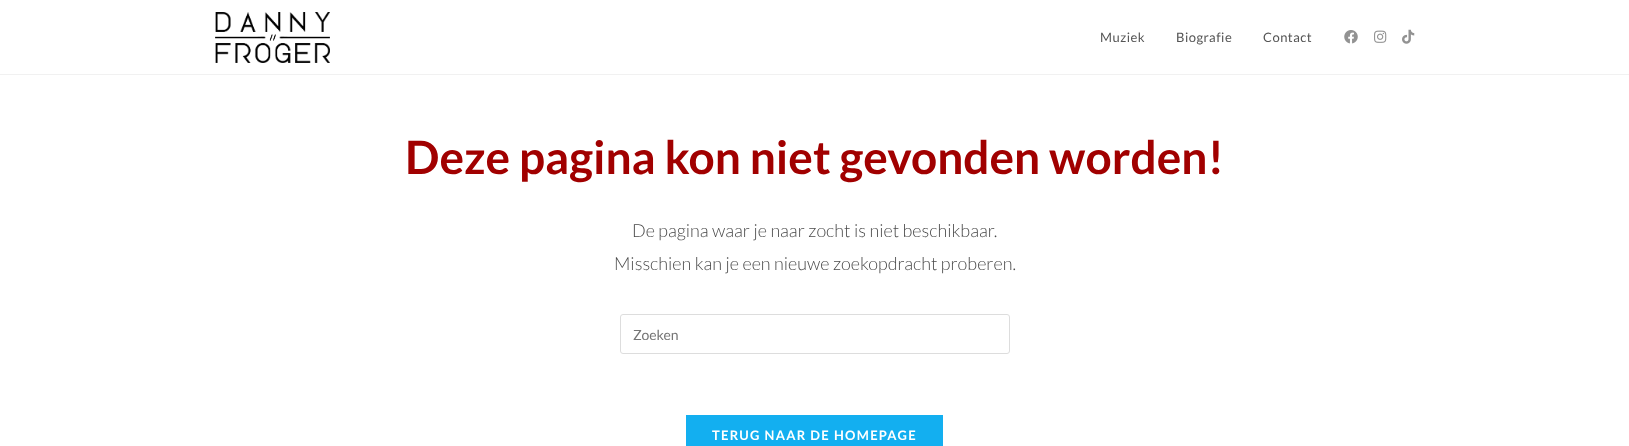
<svg xmlns="http://www.w3.org/2000/svg" width="1629" height="446">
	<rect width="100%" height="100%" fill="#FFFFFF" />
	<rect x="0" y="74" width="1629" height="1" fill="#F1F1F1" />
	<image x="215" y="12" width="115" height="51" href="assets/img1.png" />
	<g font-family="Lato" font-size="13" letter-spacing="0.5" fill="#555555">
		<text x="1100" y="42">Muziek</text>
		<text x="1176" y="42">Biografie</text>
		<text x="1263" y="42">Contact</text>
	</g>
	<image x="1344" y="30" width="14" height="14" href="assets/img2.png" />
	<image x="1374" y="30" width="13" height="13" href="assets/img3.png" />
	<image x="1402" y="29" width="13" height="15" href="assets/img4.png" />
	<text x="405" y="174" font-family="Lato" font-size="46" font-weight="700" fill="#A10000">Deze pagina kon niet gevonden worden!</text>
	<g font-family="Lato" font-size="18" font-weight="300" fill="#4A4A4A">
		<text x="632" y="237">De pagina waar je naar zocht is niet beschikbaar.</text>
		<text x="614" y="270">Misschien kan je een nieuwe zoekopdracht proberen.</text>
	</g>
	<rect x="620.5" y="314.5" width="389" height="39" rx="2.5" fill="none" stroke="#DDDDDD" />
	<text x="633" y="340" font-family="Lato" font-size="14" fill="#757575">Zoeken</text>
	<rect x="686" y="415" width="257" height="31" fill="#13AFF0" />
	<text x="712" y="440" font-family="Lato" font-size="13" font-weight="700" letter-spacing="1.3" fill="#FFFFFF">TERUG NAAR DE HOMEPAGE</text>
</svg>
